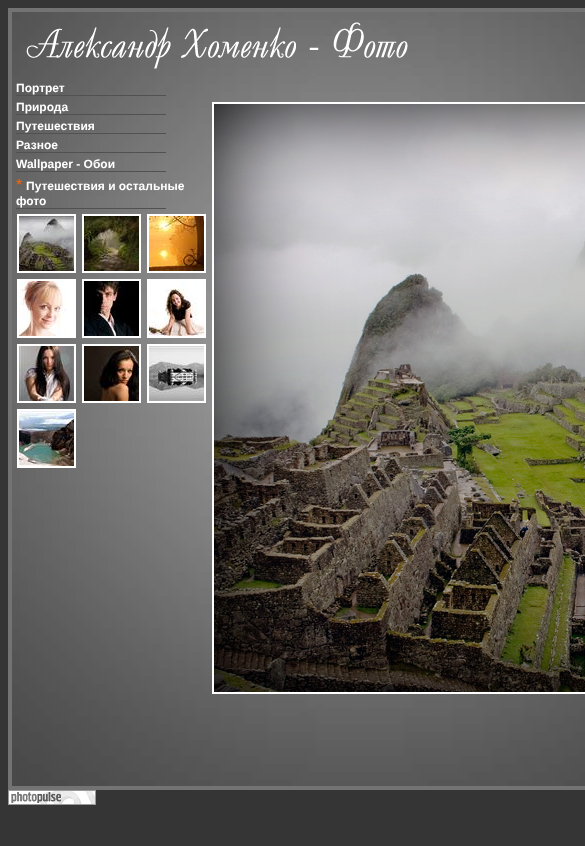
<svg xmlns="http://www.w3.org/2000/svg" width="585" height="846">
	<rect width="100%" height="100%" fill="#353535" />
	<image x="12" y="12" width="573" height="774" href="assets/img1.png" />
	<rect x="10" y="10" width="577" height="778" fill="none" stroke="#737373" stroke-width="4" />
	<image x="26" y="22" width="382" height="47" href="assets/img2.png" />
	<text x="16" y="92" font-family="Liberation Sans" font-size="12" font-weight="700" fill="#FFFFFF">Портрет</text>
	<rect x="16" y="95" width="150" height="1" fill="#515151" />
	<text x="16" y="111" font-family="Liberation Sans" font-size="12" font-weight="700" fill="#FFFFFF">Природа</text>
	<rect x="16" y="114" width="150" height="1" fill="#515151" />
	<text x="16" y="130" font-family="Liberation Sans" font-size="12" font-weight="700" fill="#FFFFFF">Путешествия</text>
	<rect x="16" y="133" width="150" height="1" fill="#515151" />
	<text x="16" y="149" font-family="Liberation Sans" font-size="12" font-weight="700" fill="#FFFFFF">Разное</text>
	<rect x="16" y="152" width="150" height="1" fill="#515151" />
	<text x="16" y="168" font-family="Liberation Sans" font-size="12" font-weight="700" fill="#FFFFFF">Wallpaper - Обои</text>
	<rect x="16" y="171" width="150" height="1" fill="#515151" />
	<text x="16" y="190" font-family="Liberation Sans" font-size="16" fill="#FF6600">*</text>
	<g font-family="Liberation Sans" font-size="12" font-weight="700" fill="#FFFFFF">
		<text x="26" y="190">Путешествия и остальные</text>
		<text x="16" y="205">фото</text>
	</g>
	<rect x="16" y="208" width="150" height="1" fill="#515151" />
	<rect x="18" y="215" width="57" height="57" fill="none" stroke="#FFFFFF" stroke-width="2" />
	<image x="19" y="216" width="55" height="55" href="assets/img3.png" />
	<rect x="83" y="215" width="57" height="57" fill="none" stroke="#FFFFFF" stroke-width="2" />
	<image x="84" y="216" width="55" height="55" href="assets/img4.png" />
	<rect x="148" y="215" width="57" height="57" fill="none" stroke="#FFFFFF" stroke-width="2" />
	<image x="149" y="216" width="55" height="55" href="assets/img5.png" />
	<rect x="18" y="280" width="57" height="57" fill="none" stroke="#FFFFFF" stroke-width="2" />
	<image x="19" y="281" width="55" height="55" href="assets/img6.png" />
	<rect x="83" y="280" width="57" height="57" fill="none" stroke="#FFFFFF" stroke-width="2" />
	<image x="84" y="281" width="55" height="55" href="assets/img7.png" />
	<rect x="148" y="280" width="57" height="57" fill="none" stroke="#FFFFFF" stroke-width="2" />
	<image x="149" y="281" width="55" height="55" href="assets/img8.png" />
	<rect x="18" y="345" width="57" height="57" fill="none" stroke="#FFFFFF" stroke-width="2" />
	<image x="19" y="346" width="55" height="55" href="assets/img9.png" />
	<rect x="83" y="345" width="57" height="57" fill="none" stroke="#FFFFFF" stroke-width="2" />
	<image x="84" y="346" width="55" height="55" href="assets/img10.png" />
	<rect x="148" y="345" width="57" height="57" fill="none" stroke="#FFFFFF" stroke-width="2" />
	<image x="149" y="346" width="55" height="55" href="assets/img11.png" />
	<rect x="18" y="410" width="57" height="57" fill="none" stroke="#FFFFFF" stroke-width="2" />
	<image x="19" y="411" width="55" height="55" href="assets/img12.png" />
	<rect x="213" y="103" width="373" height="590" fill="none" stroke="#FFFFFF" stroke-width="2" />
	<image x="214" y="104" width="371" height="588" href="assets/img13.png" />
	<image x="8" y="790" width="88" height="15" href="assets/img14.png" />
</svg>
